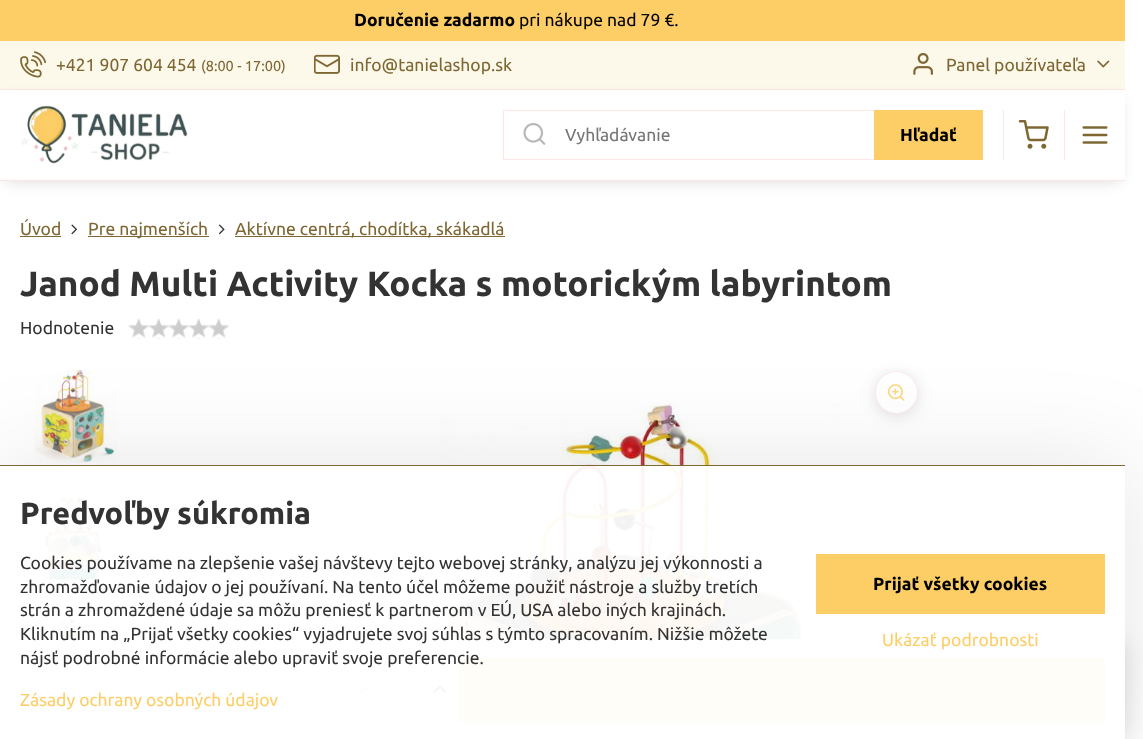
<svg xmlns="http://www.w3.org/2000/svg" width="1143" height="739">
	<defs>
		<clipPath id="clip1"><path d="M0 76H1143V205H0ZM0 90H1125V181H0Z" clip-rule="evenodd" /></clipPath>
		<clipPath id="clip2"><path d="M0 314H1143V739H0ZM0 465H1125V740H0Z" clip-rule="evenodd" /></clipPath>
	</defs>
	<rect width="100%" height="100%" fill="#FFFFFF" />
	<rect x="0" y="0" width="1125" height="41" fill="#FDCE66" />
	<text x="354" y="26" font-family="Ubuntu" font-size="17.5" font-weight="700" fill="#000000">Doručenie zadarmo</text>
	<text x="519" y="26" font-family="Ubuntu" font-size="17.5" fill="#000000">pri nákupe nad 79 €.</text>
	<rect x="0" y="41" width="1125" height="48" fill="#FCF9EA" />
	<rect x="0" y="89" width="1125" height="1" fill="#FFE6E6" />
	<image x="20" y="51" width="26" height="27" href="assets/img1.png" />
	<text x="56" y="71" font-family="Ubuntu" font-size="17.5" fill="#7E6733">+421 907 604 454</text>
	<text x="201" y="71" font-family="Ubuntu" font-size="14.5" fill="#7E6733">(8:00 - 17:00)</text>
	<image x="314" y="54" width="26" height="20" href="assets/img2.png" />
	<text x="350" y="71" font-family="Ubuntu" font-size="17.5" fill="#7E6733">info@tanielashop.sk</text>
	<image x="913" y="53" width="20" height="22" href="assets/img3.png" />
	<text x="946" y="71" font-family="Ubuntu" font-size="17.5" fill="#7E6733">Panel používateľa</text>
	<image x="1097" y="60" width="13" height="8" href="assets/img4.png" />
	<g clip-path="url(#clip1)">
		<rect x="5" y="100" width="1115" height="81" fill="#000014" fill-opacity="0.15" filter="blur(7.5px)" />
	</g>
	<rect x="0" y="180" width="1125" height="1" fill="#FFE6E6" />
	<image x="21" y="105" width="167" height="59" href="assets/img5.png" />
	<rect x="503.5" y="110.5" width="479" height="49" fill="none" stroke="#FFE6E6" />
	<image x="523" y="123" width="23" height="22" href="assets/img6.png" />
	<text x="565" y="141" font-family="Ubuntu" font-size="17.5" fill="#757575">Vyhľadávanie</text>
	<rect x="874" y="110" width="109" height="50" fill="#FDCE66" />
	<text x="900" y="141" font-family="Ubuntu" font-size="17.5" font-weight="700" fill="#000000">Hľadať</text>
	<rect x="1003" y="110" width="1" height="50" fill="#FFE6E6" />
	<image x="1018" y="120" width="31" height="29" href="assets/img7.png" />
	<rect x="1064" y="110" width="1" height="50" fill="#FFE6E6" />
	<image x="1082" y="126" width="26" height="18" href="assets/img8.png" />
	<text x="20" y="235" font-family="Ubuntu" font-size="17.5" fill="#7E6733">Úvod</text>
	<rect x="20" y="236" width="41" height="1" fill="#7E6733" />
	<image x="71" y="224" width="6" height="11" href="assets/img9.png" />
	<rect x="88" y="236" width="121" height="1" fill="#7E6733" />
	<text x="88" y="235" font-family="Ubuntu" font-size="17.5" fill="#7E6733">Pre najmenších</text>
	<image x="218" y="224" width="7" height="11" href="assets/img10.png" />
	<rect x="235" y="236" width="270" height="1" fill="#7E6733" />
	<text x="235" y="235" font-family="Ubuntu" font-size="17.5" fill="#7E6733">Aktívne centrá, chodítka, skákadlá</text>
	<text x="20" y="296" font-family="Ubuntu" font-size="35" font-weight="700" fill="#333333">Janod Multi Activity Kocka s motorickým labyrintom</text>
	<text x="20" y="334" font-family="Ubuntu" font-size="17.5" fill="#333333">Hodnotenie</text>
	<image x="128" y="318" width="101" height="21" href="assets/img11.png" />
	<image x="27" y="617" width="89" height="22" href="assets/img16.png" />
	<image x="440" y="402" width="398" height="237" href="assets/img17.png" />
	<rect x="3" y="644" width="1120" height="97" fill="#000014" fill-opacity="0.15" filter="blur(13px)" />
	<rect x="0" y="640" width="1125" height="99" fill="#FFFFFF" />
	<rect x="0" y="639" width="1125" height="1" fill="#FFE6E6" />
	<rect x="344.5" y="658.5" width="114" height="64" fill="none" stroke="#FFE6E6" />
	<image x="355" y="685" width="14" height="8" href="assets/img12.png" />
	<image x="433" y="685" width="13" height="8" href="assets/img13.png" />
	<rect x="459" y="658" width="646" height="65" fill="#FDCE66" />
	<image x="35" y="369" width="83" height="94" href="assets/img14.png" />
	<image x="33" y="493" width="79" height="93" href="assets/img15.png" />
	<rect x="875" y="374" width="43" height="42" rx="21" fill="#333343" fill-opacity="0.15" filter="blur(7.5px)" />
	<circle cx="896.5" cy="392.5" r="21" fill="#FFFFFF" stroke="#FFEBEB" />
	<image x="887" y="384" width="18" height="17" href="assets/img18.png" />
	<g clip-path="url(#clip2)">
		<rect x="0" y="465" width="1125" height="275" fill="#000000" fill-opacity="0.1" filter="blur(50px)" />
	</g>
	<rect x="0" y="466" width="1125" height="257" fill="#FFFFFF" fill-opacity="0.95" />
	<rect x="0" y="465" width="1125" height="1" fill="#7E6733" />
	<text x="20" y="524" font-family="Ubuntu" font-size="30.6" font-weight="700" fill="#333333">Predvoľby súkromia</text>
	<g font-family="Ubuntu" font-size="17.5" fill="#333333">
		<text x="20" y="569">Cookies používame na zlepšenie vašej návštevy tejto webovej stránky, analýzu jej výkonnosti a</text>
		<text x="20" y="593">zhromažďovanie údajov o jej používaní. Na tento účel môžeme použiť nástroje a služby tretích</text>
		<text x="20" y="616">strán a zhromaždené údaje sa môžu preniesť k partnerom v EÚ, USA alebo iných krajinách.</text>
		<text x="20" y="640">Kliknutím na „Prijať všetky cookies“ vyjadrujete svoj súhlas s týmto spracovaním. Nižšie môžete</text>
		<text x="20" y="664">nájsť podrobné informácie alebo upraviť svoje preferencie.</text>
	</g>
	<text x="20" y="706" font-family="Ubuntu" font-size="17.5" fill="#FDCE66">Zásady ochrany osobných údajov</text>
	<rect x="816" y="554" width="289" height="60" fill="#FDCE66" />
	<text x="873" y="590" font-family="Ubuntu" font-size="17.5" font-weight="700" fill="#000000">Prijať všetky cookies</text>
	<text x="882" y="646" font-family="Ubuntu" font-size="17.5" fill="#FDCE66">Ukázať podrobnosti</text>
</svg>
